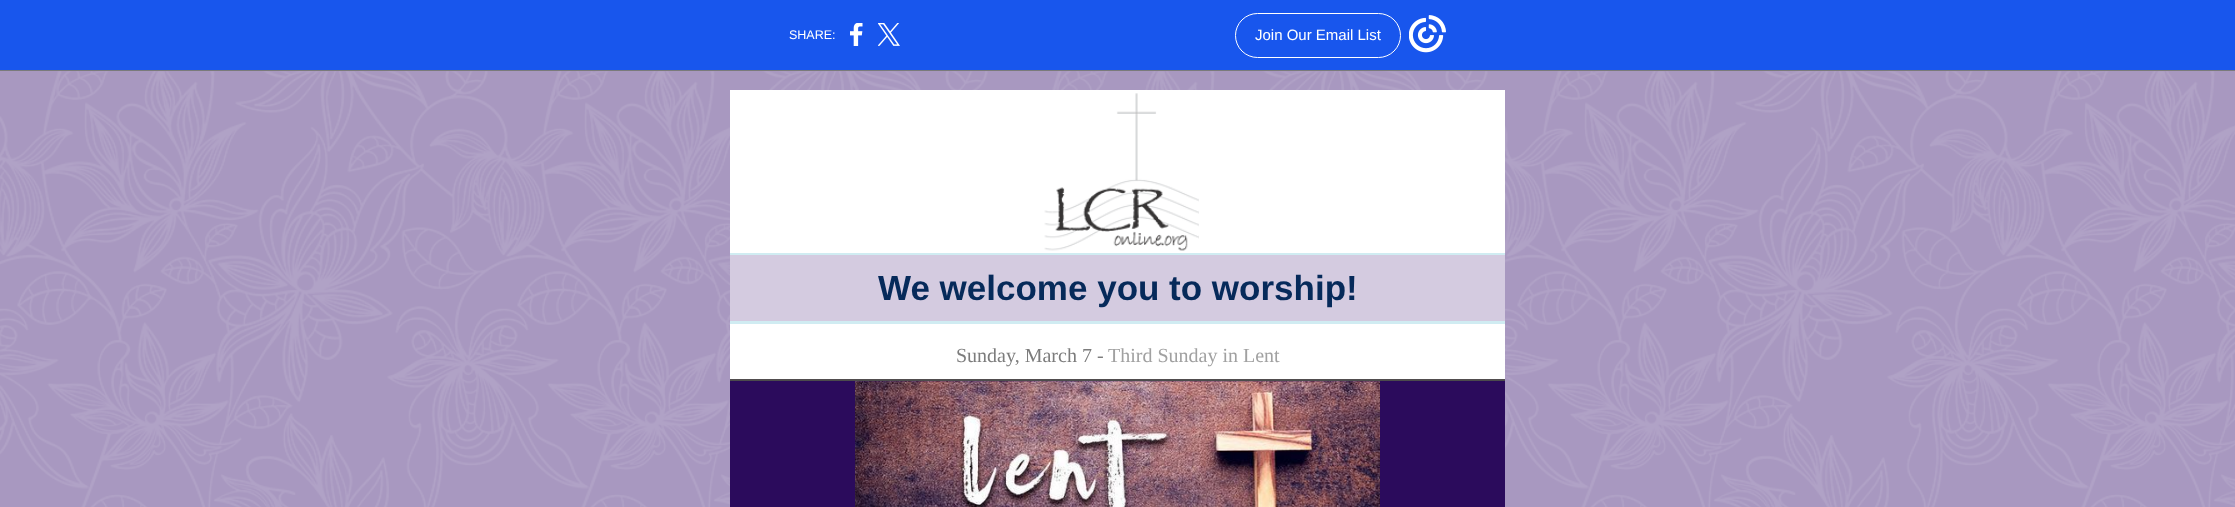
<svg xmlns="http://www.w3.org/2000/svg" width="2235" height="507">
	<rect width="100%" height="100%" fill="#A898C0" />
	<rect x="0" y="0" width="2235" height="70" fill="#1856ED" />
	<rect x="0" y="70" width="2235" height="1" fill="#7A7A7A" />
	<text x="789" y="39" font-family="Liberation Sans" font-size="12.5" fill="#FFFFFF">SHARE:</text>
	<image x="850" y="23" width="13" height="23" href="assets/img1.png" />
	<image x="878" y="23" width="22" height="23" href="assets/img2.png" />
	<rect x="1235.5" y="13.5" width="165" height="44" rx="22" fill="none" stroke="#FFFFFF" />
	<text x="1255" y="40" font-family="Liberation Sans" font-size="15" fill="#FFFFFF">Join Our Email List</text>
	<image x="1409" y="15" width="37" height="38" href="assets/img3.png" />
	<image x="0" y="71" width="2235" height="436" href="assets/img4.png" />
	<rect x="730" y="90" width="775" height="289" fill="#FFFFFF" />
	<image x="1044" y="93" width="155" height="158" href="assets/img5.png" />
	<rect x="730" y="253" width="775" height="2" fill="#D0ECF2" />
	<rect x="730" y="255" width="775" height="66" fill="#D4CBE0" />
	<text x="878" y="300" font-family="Liberation Sans" font-size="35" font-weight="700" fill="#062A5A">We welcome you to worship!</text>
	<rect x="730" y="321" width="775" height="3" fill="#D0ECF2" />
	<text x="956" y="362" font-family="Liberation Serif" font-size="20" fill="#7C7C7C">Sunday, March 7 -</text>
	<text x="1108" y="362" font-family="Liberation Serif" font-size="20" fill="#A1A1A1">Third Sunday in Lent</text>
	<rect x="730" y="379" width="775" height="1" fill="#514D4E" />
	<rect x="730" y="380" width="775" height="1" fill="#4C4C4C" />
	<rect x="730" y="381" width="775" height="126" fill="#2B0B5C" />
	<image x="855" y="381" width="525" height="126" href="assets/img6.png" />
</svg>
